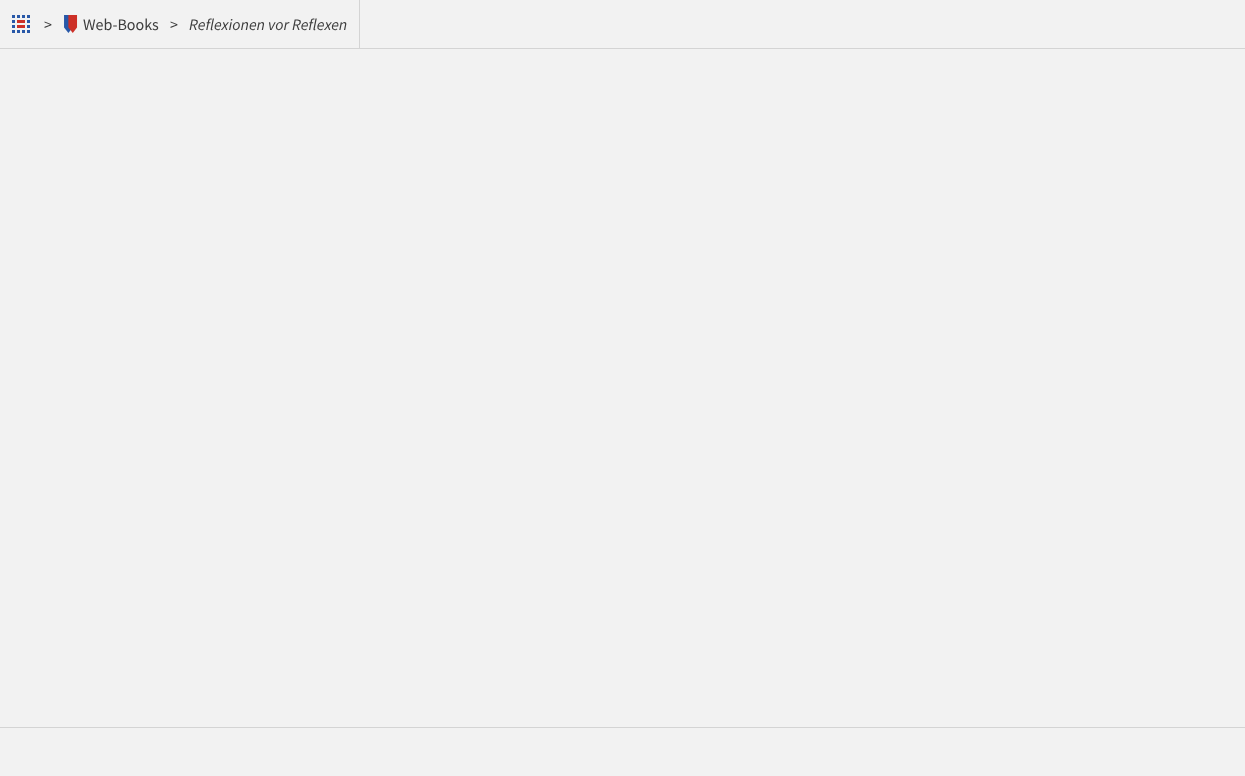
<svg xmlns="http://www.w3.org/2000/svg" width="1245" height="776">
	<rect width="100%" height="100%" fill="#F2F2F2" />
	<rect x="0" y="48" width="1245" height="1" fill="#D4D4D4" />
	<rect x="359" y="0" width="1" height="48" fill="#D4D4D4" />
	<image x="12" y="15" width="18" height="18" href="assets/img1.png" />
	<text x="44" y="30" font-family="Source Sans Pro" font-size="16" fill="#3D3D3D">&gt;</text>
	<image x="64" y="15" width="14" height="18" href="assets/img2.png" />
	<g font-family="Source Sans Pro" font-size="16" fill="#3D3D3D">
		<text x="83" y="30">Web-Books</text>
		<text x="170" y="30">&gt;</text>
	</g>
	<text x="189" y="30" font-family="Source Sans Pro" font-size="16" font-style="italic" fill="#3D3D3D">Reflexionen vor Reflexen</text>
	<rect x="0" y="727" width="1245" height="1" fill="#D4D4D4" />
</svg>
